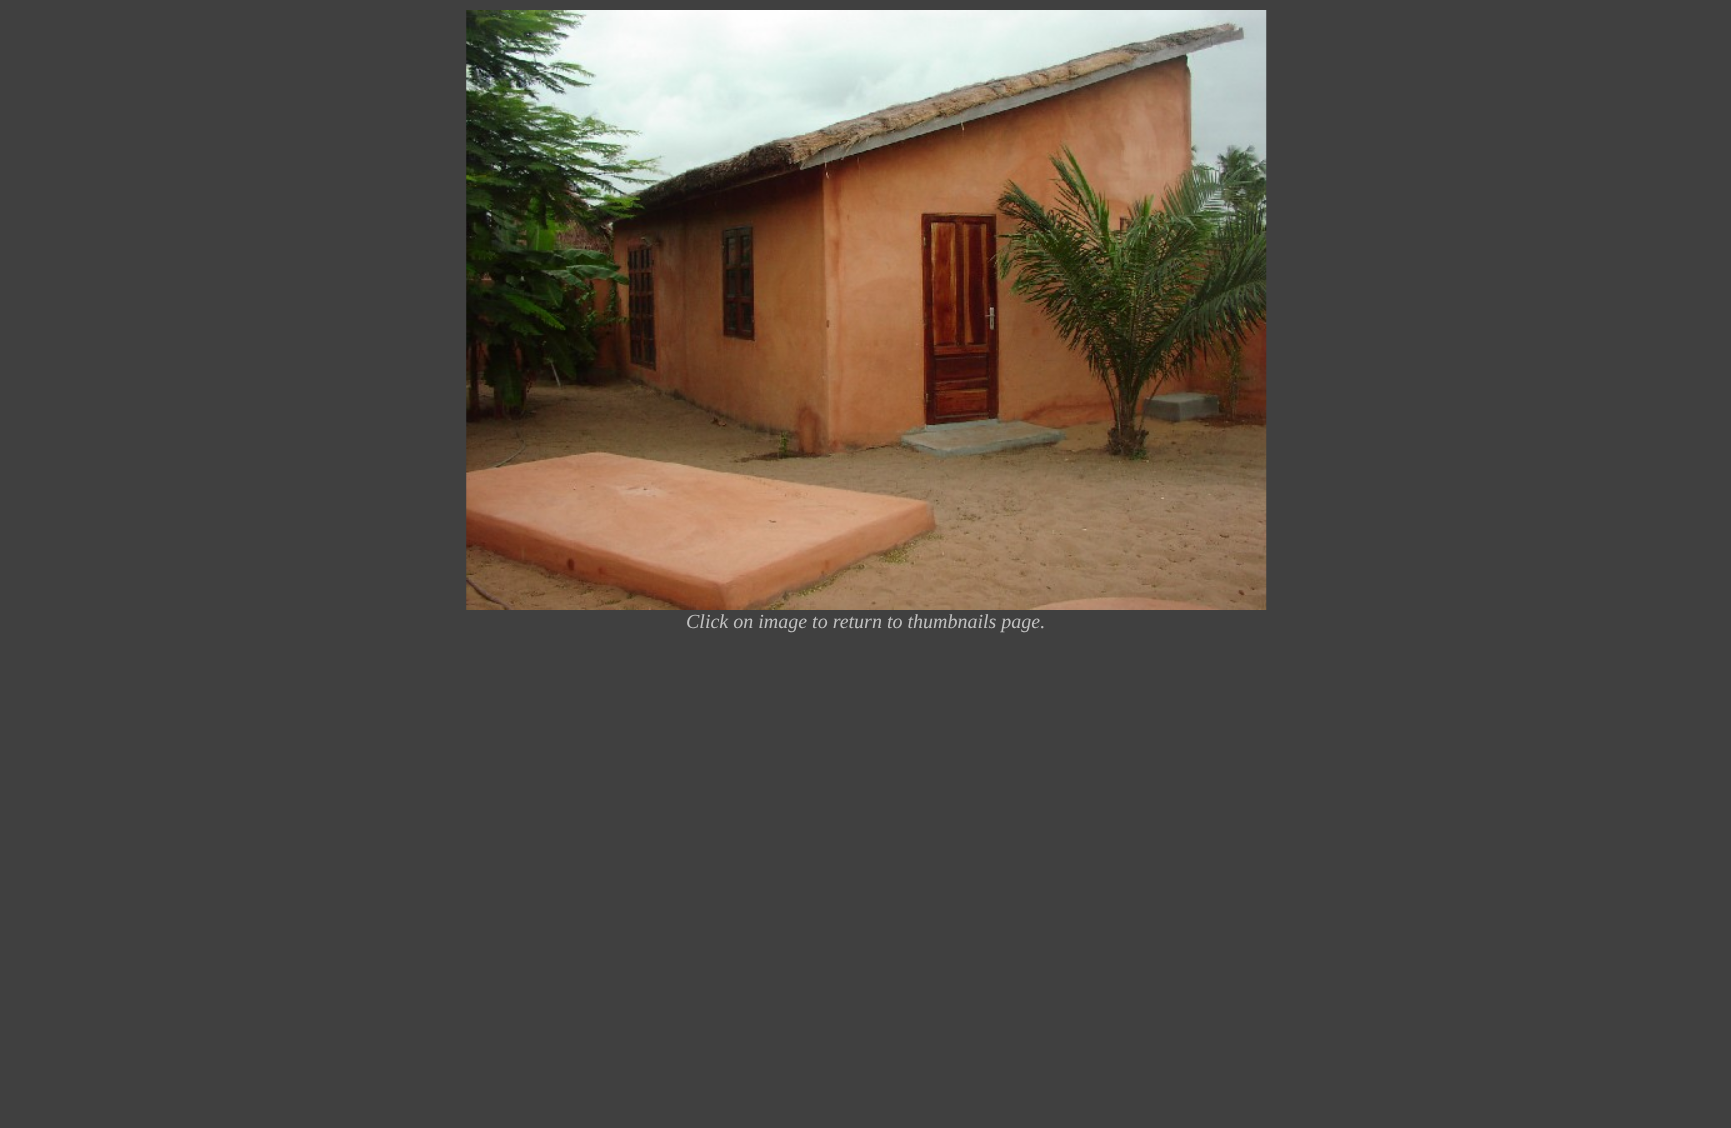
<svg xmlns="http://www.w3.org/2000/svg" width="1731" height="1128">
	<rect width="100%" height="100%" fill="#404040" />
	<image x="466" y="10" width="801" height="600" href="assets/img1.png" />
	<text x="686" y="628" font-family="Liberation Serif" font-size="20" font-style="italic" fill="#C0C0C0">Click on image to return to thumbnails page.</text>
</svg>
